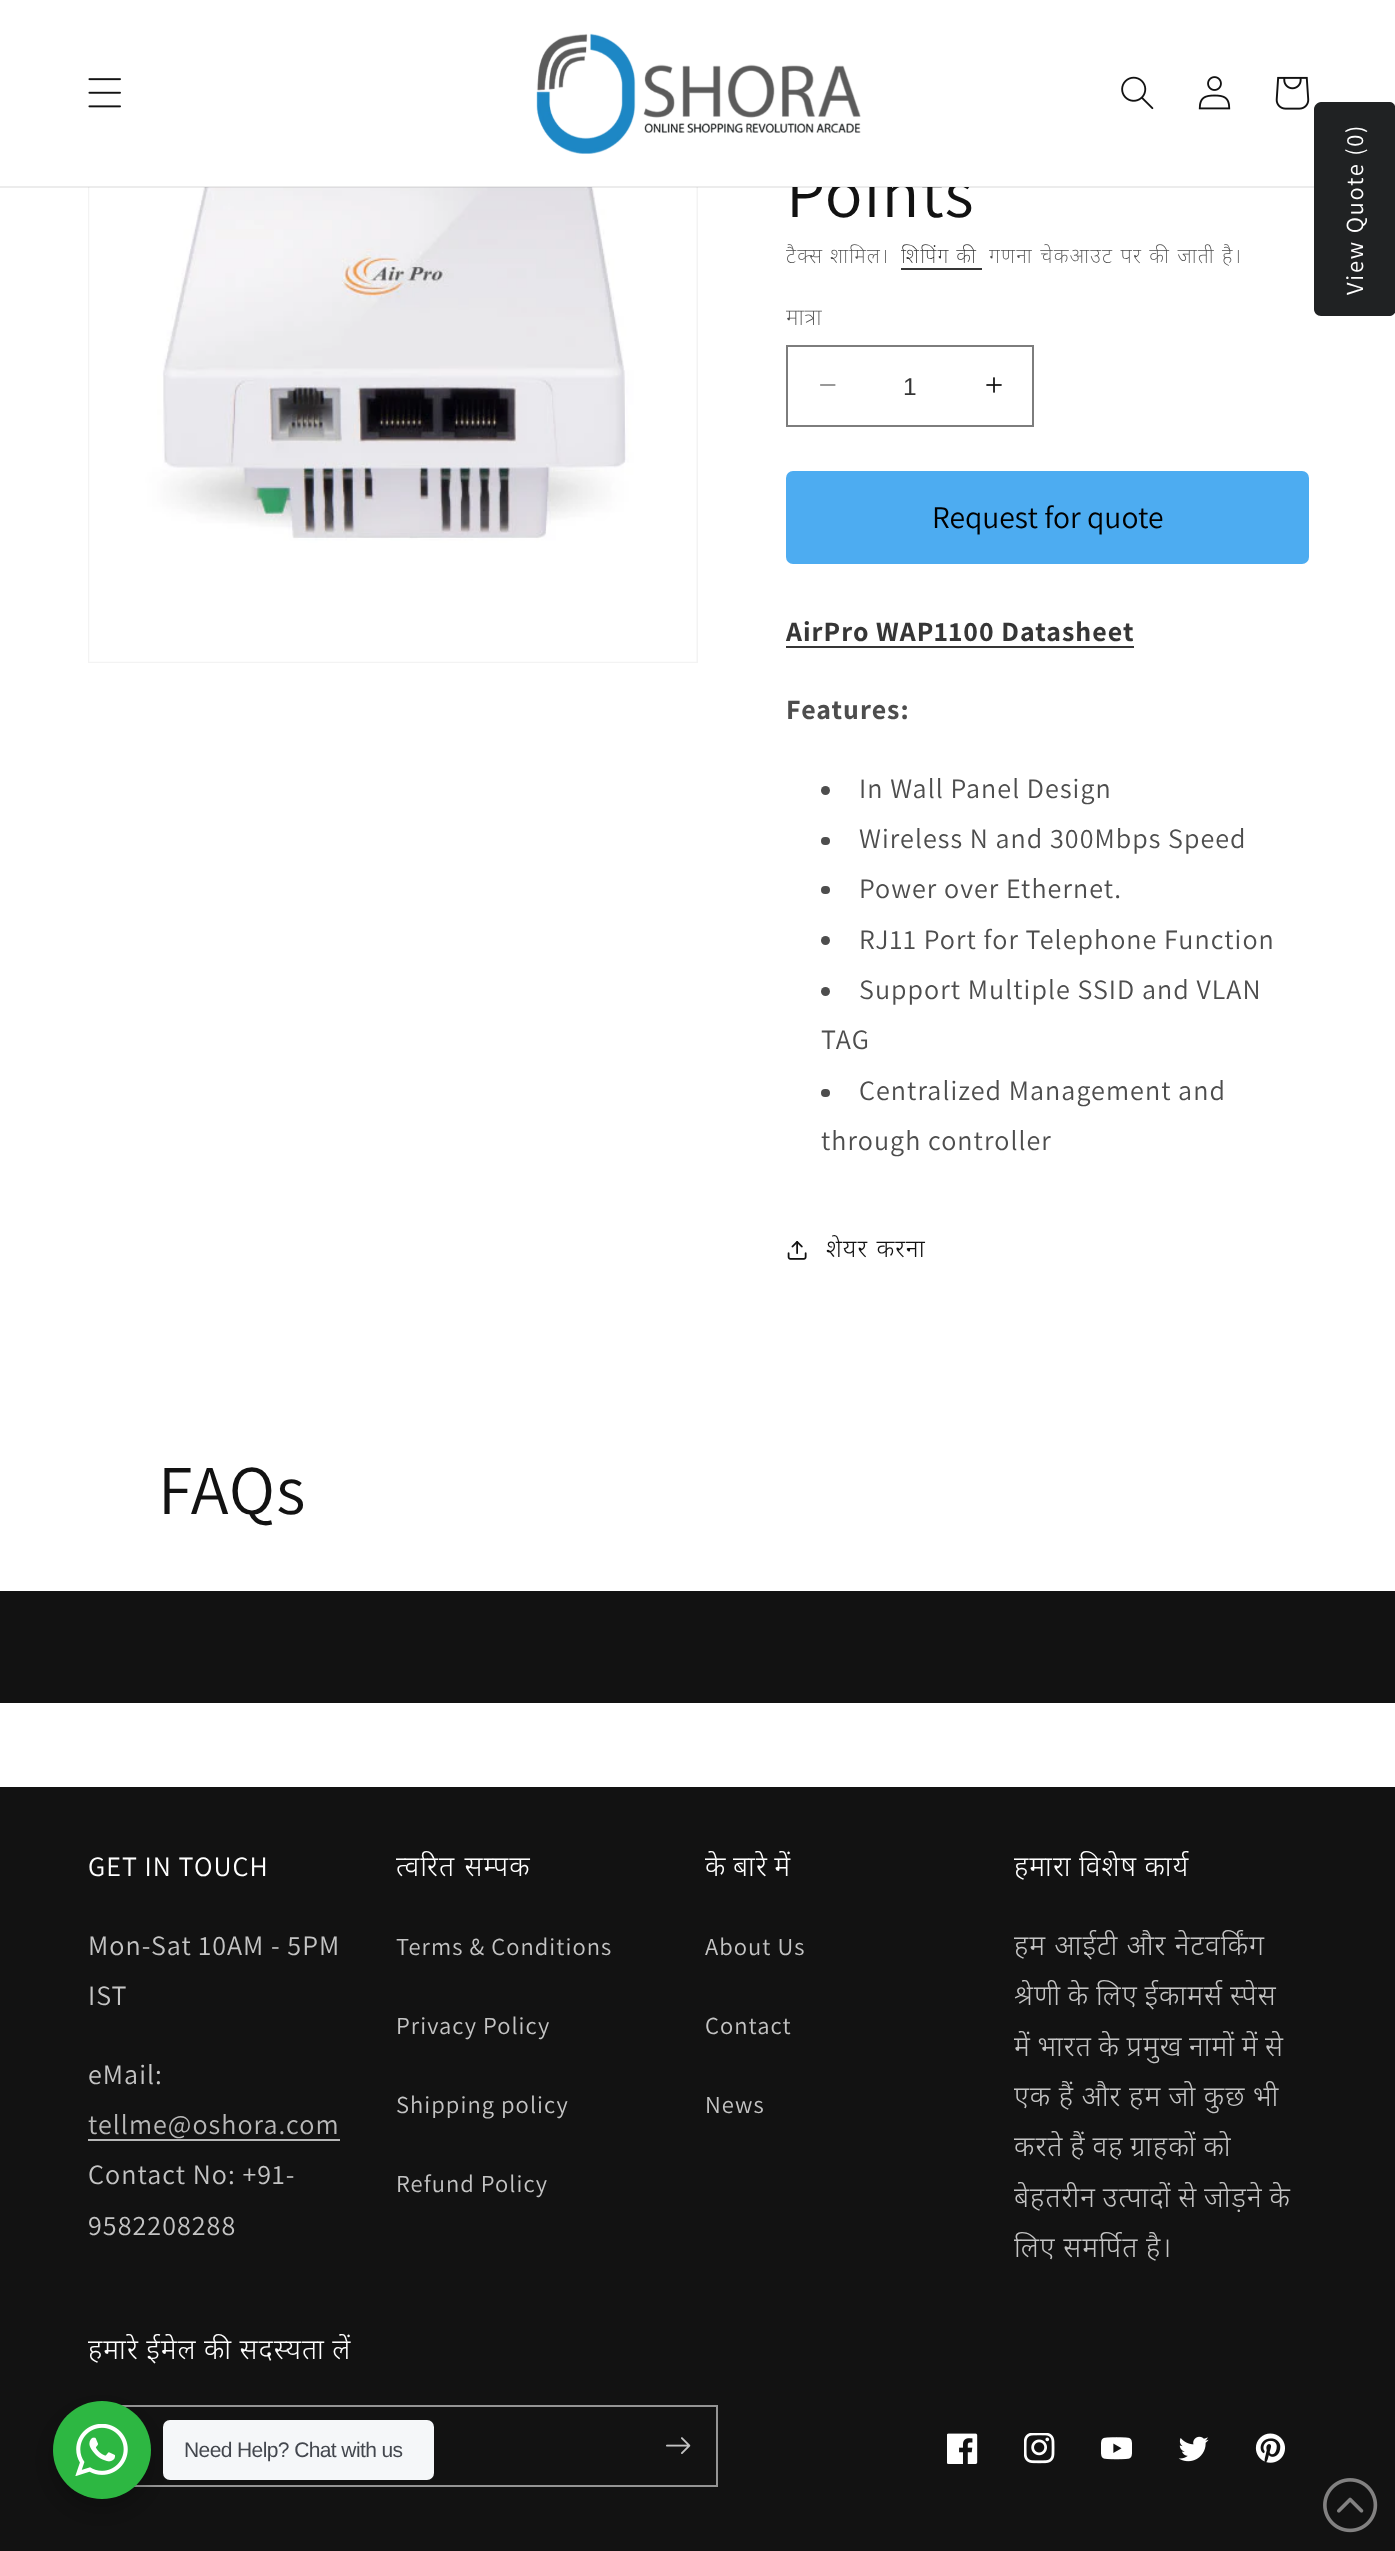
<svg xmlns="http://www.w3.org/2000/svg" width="1395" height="2551">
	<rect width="100%" height="100%" fill="#FFFFFF" />
	<rect x="89" y="54" width="608" height="608" fill="none" stroke="#F3F3F3" stroke-width="2" />
	<text x="786" y="217" font-family="Assistant" font-size="70" letter-spacing="1.05" fill="#121212">Points</text>
	<rect x="88" y="53" width="882" height="134" fill="#FFFFFF" />
	<image x="89" y="187" width="608" height="475" href="assets/img6.png" />
	<rect x="0" y="186" width="1314" height="2" fill="#121212" fill-opacity="0.08" />
	<image x="88" y="78" width="33" height="30" href="assets/img1.png" />
	<image x="536" y="33" width="325" height="121" href="assets/img2.png" />
	<image x="1121" y="76" width="33" height="34" href="assets/img3.png" />
	<image x="1198" y="76" width="33" height="34" href="assets/img4.png" />
	<image x="1275" y="76" width="35" height="34" href="assets/img5.png" />
	<text x="786" y="263" font-family="Noto Sans" font-size="21" font-weight="200" letter-spacing="1.25" fill="#4D4D4D">टैक्स शामिल।</text>
	<text x="901" y="263" font-family="Noto Sans" font-size="21" font-weight="200" letter-spacing="1.25" fill="#363636">शिपिंग की</text>
	<rect x="901" y="268" width="81" height="2" fill="#363636" />
	<text x="989" y="263" word-spacing="0.5" font-family="Noto Sans" font-size="21" font-weight="200" letter-spacing="1.25" fill="#4D4D4D">गणना चेकआउट पर की जाती है।</text>
	<text x="786" y="325" font-family="Noto Sans" font-size="23" font-weight="200" letter-spacing="0.75" fill="#4D4D4D">मात्रा</text>
	<image x="820" y="384" width="16" height="2" href="assets/img7.png" />
	<image x="986" y="377" width="16" height="16" href="assets/img8.png" />
	<rect x="787" y="346" width="246" height="80" fill="none" stroke="#7D7D7D" stroke-width="2" />
	<text x="903" y="395" font-family="Liberation Sans" font-size="24.5" fill="#363636">1</text>
	<rect x="786" y="471" width="523" height="93" rx="7" fill="#4DACF1" />
	<text x="932" y="528" font-family="Assistant" font-size="31.5" fill="#000000">Request for quote</text>
	<text x="786" y="641" font-family="Assistant" font-size="28" font-weight="700" letter-spacing="1.05" fill="#363636">AirPro WAP1100 Datasheet</text>
	<rect x="786" y="646" width="348" height="2" fill="#363636" />
	<text x="786" y="719" font-family="Assistant" font-size="28" font-weight="700" letter-spacing="1.05" fill="#4D4D4D">Features:</text>
	<circle cx="825.5" cy="790.5" r="4.5" fill="#4D4D4D" />
	<text x="859" y="798" font-family="Assistant" font-size="28" letter-spacing="1.05" fill="#4D4D4D">In Wall Panel Design</text>
	<rect x="821" y="837" width="9" height="8" rx="4" fill="#4D4D4D" />
	<text x="859" y="848" font-family="Assistant" font-size="28" letter-spacing="1.05" fill="#4D4D4D">Wireless N and 300Mbps Speed</text>
	<rect x="821" y="886" width="9" height="8" rx="4" fill="#4D4D4D" />
	<text x="859" y="898" font-family="Assistant" font-size="28" letter-spacing="1.05" fill="#4D4D4D">Power over Ethernet.</text>
	<circle cx="825.5" cy="940.5" r="4.5" fill="#4D4D4D" />
	<text x="859" y="949" font-family="Assistant" font-size="28" letter-spacing="1.05" fill="#4D4D4D">RJ11 Port for Telephone Function</text>
	<circle cx="825.5" cy="991.5" r="4.5" fill="#4D4D4D" />
	<g font-family="Assistant" font-size="28" letter-spacing="1.05" fill="#4D4D4D">
		<text x="859" y="999">Support Multiple SSID and VLAN</text>
		<text x="821" y="1049">TAG</text>
	</g>
	<rect x="821" y="1089" width="9" height="8" rx="4" fill="#4D4D4D" />
	<g font-family="Assistant" font-size="28" letter-spacing="1.05" fill="#4D4D4D">
		<text x="859" y="1100">Centralized Management and</text>
		<text x="821" y="1150">through controller</text>
	</g>
	<image x="787" y="1241" width="20" height="19" href="assets/img9.png" />
	<text x="826" y="1257" word-spacing="1" font-family="Noto Sans" font-size="24.5" font-weight="300" letter-spacing="1.05" fill="#121212">शेयर करना</text>
	<text x="158" y="1514" font-family="Assistant" font-size="70" letter-spacing="1.05" fill="#121212">FAQs</text>
	<rect x="0" y="1591" width="1395" height="112" fill="#121212" />
	<path d="M1314 309V109C1314 106 1317 102 1321 102H1390C1393 102 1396 106 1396 109V309C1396 313 1393 316 1390 316H1321C1317 316 1314 313 1314 309Z" fill="#202223" />
	<text x="1363" y="295" transform="rotate(-90 1363 295)" font-family="Assistant" font-size="24.5" letter-spacing="1.75" fill="#FFFFFF">View Quote (0)</text>
	<rect x="0" y="1787" width="1395" height="764" fill="#121212" />
	<text x="88" y="1876" font-family="Assistant" font-size="28" letter-spacing="1.05" fill="#FFFFFF">GET IN TOUCH</text>
	<g font-family="Assistant" font-size="28" letter-spacing="1.05" fill="#C4C4C4">
		<text x="88" y="1955">Mon-Sat 10AM - 5PM</text>
		<text x="88" y="2005">IST</text>
		<text x="88" y="2084">eMail:</text>
	</g>
	<text x="88" y="2134" font-family="Assistant" font-size="28" letter-spacing="1.05" fill="#B8B8B8">tellme@oshora.com</text>
	<rect x="88" y="2139" width="252" height="2" fill="#B8B8B8" />
	<g font-family="Assistant" font-size="28" letter-spacing="1.05" fill="#C4C4C4">
		<text x="88" y="2184">Contact No: +91-</text>
		<text x="88" y="2235">9582208288</text>
	</g>
	<text x="396" y="1876" word-spacing="1" font-family="Noto Sans" font-size="28" font-weight="300" letter-spacing="1.05" fill="#FFFFFF">त्वरित सम्पक</text>
	<g font-family="Assistant" font-size="24.5" letter-spacing="1.05" fill="#C4C4C4">
		<text x="396" y="1955">Terms &amp; Conditions</text>
		<text x="396" y="2034">Privacy Policy</text>
		<text x="396" y="2113">Shipping policy</text>
		<text x="396" y="2192">Refund Policy</text>
	</g>
	<text x="705" y="1876" word-spacing="-1.75" font-family="Noto Sans" font-size="28" font-weight="300" letter-spacing="1.05" fill="#FFFFFF">के बारे में</text>
	<g font-family="Assistant" font-size="24.5" letter-spacing="1.05" fill="#C4C4C4">
		<text x="705" y="1955">About Us</text>
		<text x="705" y="2034">Contact</text>
		<text x="705" y="2113">News</text>
	</g>
	<text x="1014" y="1876" word-spacing="-1" font-family="Noto Sans" font-size="28" font-weight="300" letter-spacing="1.05" fill="#FFFFFF">हमारा विशेष कार्य</text>
	<g font-family="Noto Sans" font-size="28" font-weight="300" letter-spacing="1.05" fill="#C4C4C4">
		<text x="1014" y="1955">हम आईटी और नेटवर्किंग</text>
		<text x="1014" y="2005" word-spacing="-1.5">श्रेणी के लिए ईकामर्स स्पेस</text>
		<text x="1014" y="2056" word-spacing="-1.75">में भारत के प्रमुख नामों में से</text>
		<text x="1014" y="2106" word-spacing="-0.75">एक हैं और हम जो कुछ भी</text>
		<text x="1014" y="2156" word-spacing="-1.5">करते हैं वह ग्राहकों को</text>
		<text x="1014" y="2207" word-spacing="-1.5">बेहतरीन उत्पादों से जोड़ने के</text>
		<text x="1014" y="2257" word-spacing="-0.75">लिए समर्पित है।</text>
	</g>
	<text x="88" y="2359" word-spacing="-1" font-family="Noto Sans" font-size="28" font-weight="300" letter-spacing="1.05" fill="#FFFFFF">हमारे ईमेल की सदस्यता लें</text>
	<rect x="89" y="2406" width="628" height="80" fill="none" stroke="#949494" stroke-width="2" />
	<text x="149" y="2453" font-family="Noto Sans" font-size="28" font-weight="300" letter-spacing="1.75" fill="#C4C4C4">े</text>
	<image x="666" y="2437" width="25" height="17" href="assets/img10.png" />
	<image x="947" y="2433" width="31" height="31" href="assets/img11.png" />
	<image x="1024" y="2433" width="31" height="31" href="assets/img12.png" />
	<image x="1101" y="2437" width="31" height="23" href="assets/img13.png" />
	<image x="1178" y="2436" width="31" height="26" href="assets/img14.png" />
	<image x="1255" y="2433" width="30" height="30" href="assets/img15.png" />
	<rect x="49" y="2408" width="105" height="105" rx="52.5" fill="#000000" fill-opacity="0.14" filter="blur(7px)" />
	<circle cx="102" cy="2450" r="49" fill="#2DB742" />
	<image x="75" y="2424" width="53" height="52" href="assets/img16.png" />
	<rect x="163" y="2420" width="271" height="60" rx="7" fill="#F5F7F9" />
	<text x="184" y="2457" font-family="Liberation Sans" font-size="21" letter-spacing="-0.6" fill="#43474E">Need Help? Chat with us</text>
	<image x="1323" y="2478" width="55" height="55" href="assets/img17.png" />
</svg>
